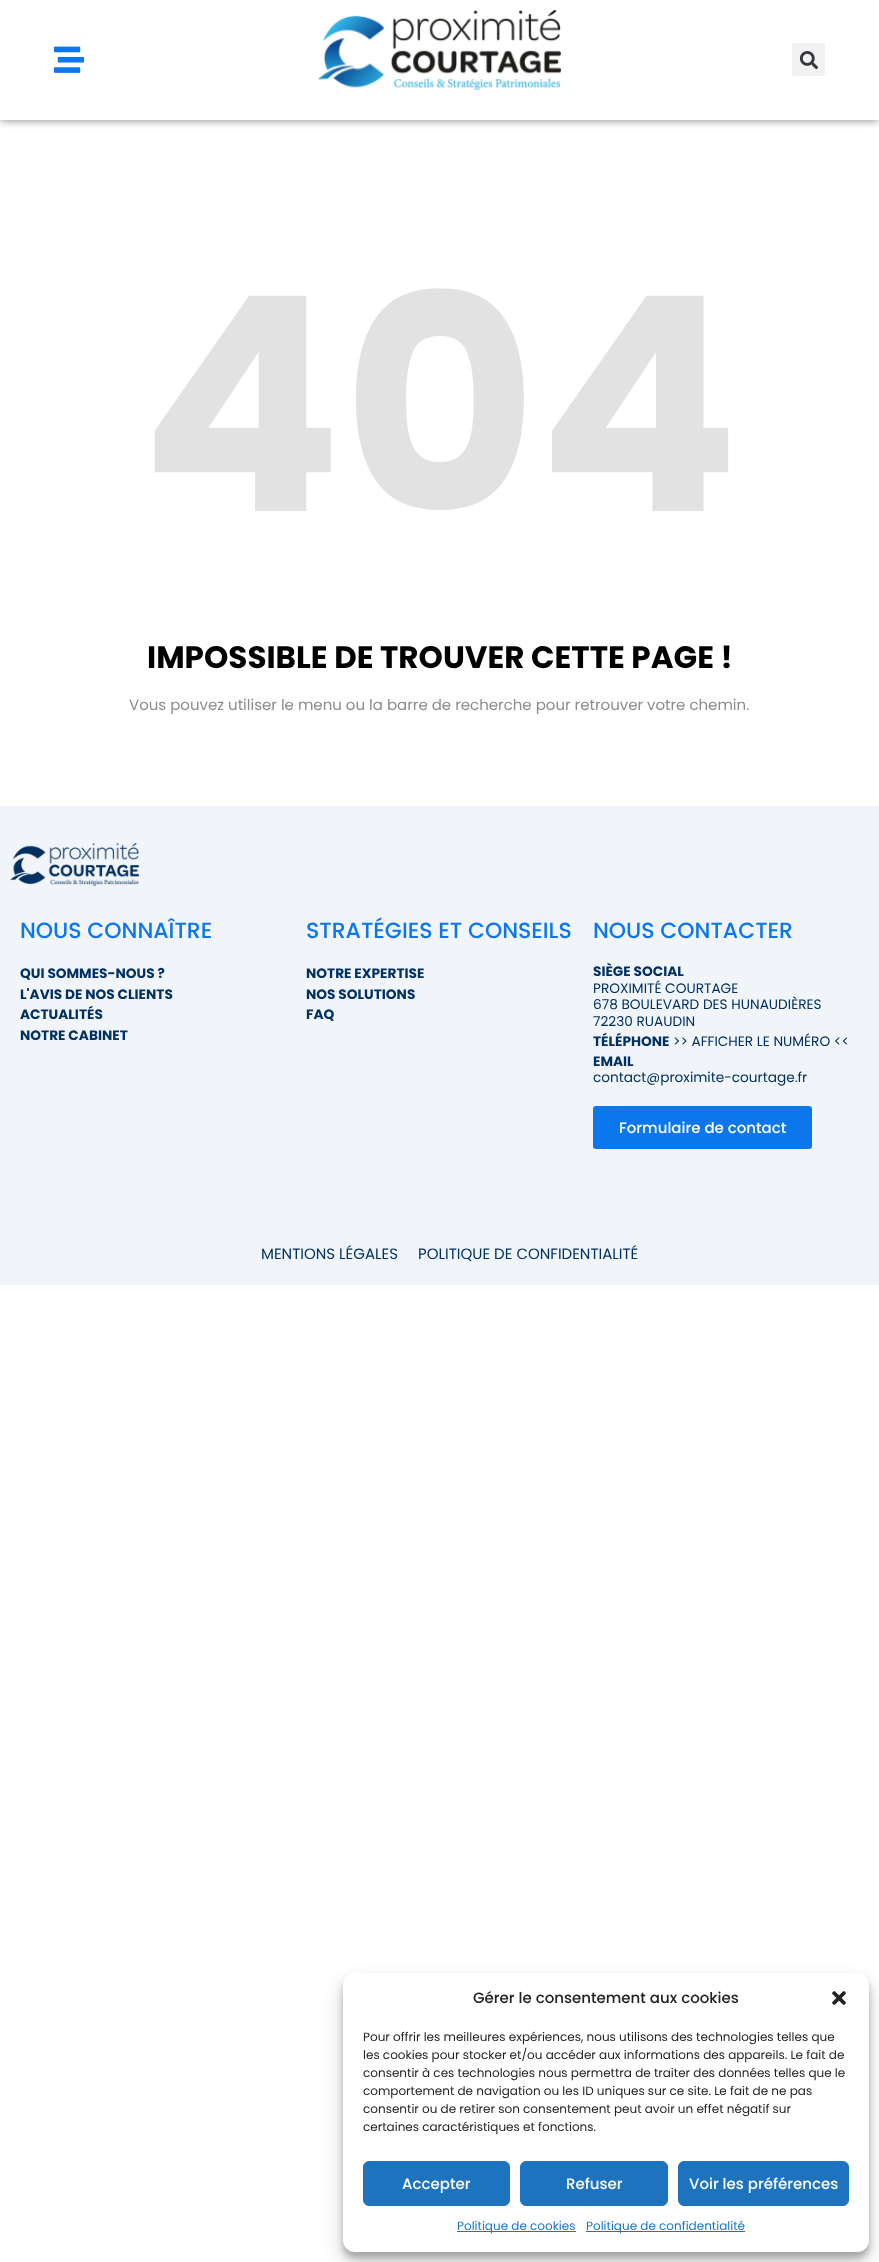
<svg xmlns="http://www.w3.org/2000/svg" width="879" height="2262">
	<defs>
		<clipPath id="clip1"><rect x="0" y="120" width="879" height="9" /></clipPath>
	</defs>
	<rect width="100%" height="100%" fill="#FFFFFF" />
	<g clip-path="url(#clip1)">
		<rect x="0" y="0" width="879" height="120" fill="#000000" fill-opacity="0.5" filter="blur(5px)" />
	</g>
	<image x="54" y="46" width="30" height="27" href="assets/img1.png" />
	<image x="318" y="10" width="244" height="80" href="assets/img2.png" />
	<rect x="792" y="43" width="33" height="33" rx="3" fill="#F2F2F2" />
	<image x="799" y="51" width="19" height="19" href="assets/img3.png" />
	<text x="140" y="511" font-family="Poppins" font-size="299" font-weight="700" fill="#E2E2E2">404</text>
	<text x="147" y="668" font-family="Poppins" font-size="31" font-weight="700" fill="#000000">IMPOSSIBLE DE TROUVER CETTE PAGE !</text>
	<text x="129" y="710" font-family="Poppins" font-size="15" fill="#8C8C8C">Vous pouvez utiliser le menu ou la barre de recherche pour retrouver votre chemin.</text>
	<rect x="0" y="806" width="879" height="479" fill="#F1F5FA" />
	<image x="10" y="843" width="129" height="44" href="assets/img4.png" />
	<text x="20" y="938" font-family="Poppins" font-size="22" font-weight="500" fill="#0C76ED">NOUS CONNAÎTRE</text>
	<g font-family="Poppins" font-size="13.7" font-weight="700" fill="#003160">
		<text x="20" y="978">QUI SOMMES-NOUS ?</text>
		<text x="20" y="999">L'AVIS DE NOS CLIENTS</text>
		<text x="20" y="1019">ACTUALITÉS</text>
		<text x="20" y="1040">NOTRE CABINET</text>
	</g>
	<text x="306" y="938" font-family="Poppins" font-size="22" font-weight="500" fill="#0C76ED">STRATÉGIES ET CONSEILS</text>
	<g font-family="Poppins" font-size="13.7" font-weight="700" fill="#003160">
		<text x="306" y="978">NOTRE EXPERTISE</text>
		<text x="306" y="999">NOS SOLUTIONS</text>
		<text x="306" y="1019">FAQ</text>
	</g>
	<text x="593" y="938" font-family="Poppins" font-size="22" font-weight="500" fill="#0C76ED">NOUS CONTACTER</text>
	<text x="593" y="976" font-family="Poppins" font-size="13.7" font-weight="700" fill="#003160">SIÈGE SOCIAL</text>
	<g font-family="Poppins" font-size="13.7" fill="#003160">
		<text x="593" y="993">PROXIMITÉ COURTAGE</text>
		<text x="593" y="1009">678 BOULEVARD DES HUNAUDIÈRES</text>
		<text x="593" y="1026">72230 RUAUDIN</text>
	</g>
	<text x="593" y="1046" font-family="Poppins" font-size="13.7" font-weight="700" fill="#003160">TÉLÉPHONE</text>
	<text x="673" y="1046" font-family="Poppins" font-size="13.7" fill="#003160">&gt;&gt; AFFICHER LE NUMÉRO &lt;&lt;</text>
	<text x="593" y="1066" font-family="Poppins" font-size="13.7" font-weight="700" fill="#003160">EMAIL</text>
	<text x="593" y="1082" font-family="Poppins" font-size="13.7" fill="#003160">contact@proximite-courtage.fr</text>
	<rect x="594" y="1107" width="217" height="41" rx="2" fill="#0C76ED" stroke="#0C76ED" stroke-width="2" />
	<text x="619" y="1133" font-family="Poppins" font-size="15" font-weight="500" fill="#FFFFFF">Formulaire de contact</text>
	<g font-family="Poppins" font-size="15" fill="#003160">
		<text x="261" y="1259">MENTIONS LÉGALES</text>
		<text x="418" y="1259">POLITIQUE DE CONFIDENTIALITÉ</text>
	</g>
	<rect x="343" y="1979" width="526" height="279" rx="12" fill="#000000" fill-opacity="0.23" filter="blur(3px)" />
	<rect x="343" y="1983" width="526" height="279" rx="12" fill="#000000" fill-opacity="0.19" filter="blur(10px)" />
	<rect x="343" y="1973" width="526" height="279" rx="12" fill="#FFFFFF" />
	<text x="473" y="2003" font-family="Poppins" font-size="15" font-weight="500" fill="#222222">Gérer le consentement aux cookies</text>
	<image x="832" y="1991" width="14" height="14" href="assets/img5.png" />
	<g font-family="Poppins" font-size="12" fill="#222222">
		<text x="363" y="2041">Pour offrir les meilleures expériences, nous utilisons des technologies telles que</text>
		<text x="363" y="2059">les cookies pour stocker et/ou accéder aux informations des appareils. Le fait de</text>
		<text x="363" y="2077">consentir à ces technologies nous permettra de traiter des données telles que le</text>
		<text x="363" y="2095">comportement de navigation ou les ID uniques sur ce site. Le fait de ne pas</text>
		<text x="363" y="2113">consentir ou de retirer son consentement peut avoir un effet négatif sur</text>
		<text x="363" y="2131">certaines caractéristiques et fonctions.</text>
	</g>
	<rect x="363.5" y="2161.5" width="146" height="44" rx="5.5" fill="#1E73BE" stroke="#1E73BE" />
	<text x="402" y="2189" font-family="Poppins" font-size="15" font-weight="500" fill="#FFFFFF">Accepter</text>
	<rect x="520.5" y="2161.5" width="147" height="44" rx="5.5" fill="#1E73BE" stroke="#1E73BE" />
	<text x="566" y="2189" font-family="Poppins" font-size="15" font-weight="500" fill="#FFFFFF">Refuser</text>
	<rect x="678.5" y="2161.5" width="170" height="44" rx="5.5" fill="#1E73BE" stroke="#1E73BE" />
	<text x="689" y="2189" font-family="Poppins" font-size="15" font-weight="500" fill="#FFFFFF">Voir les préférences</text>
	<rect x="457" y="2231" width="119" height="1" fill="#1E73BE" />
	<text x="457" y="2230" font-family="Poppins" font-size="12" fill="#1E73BE">Politique de cookies</text>
	<rect x="586" y="2231" width="159" height="1" fill="#1E73BE" />
	<text x="586" y="2230" font-family="Poppins" font-size="12" fill="#1E73BE">Politique de confidentialité</text>
</svg>
